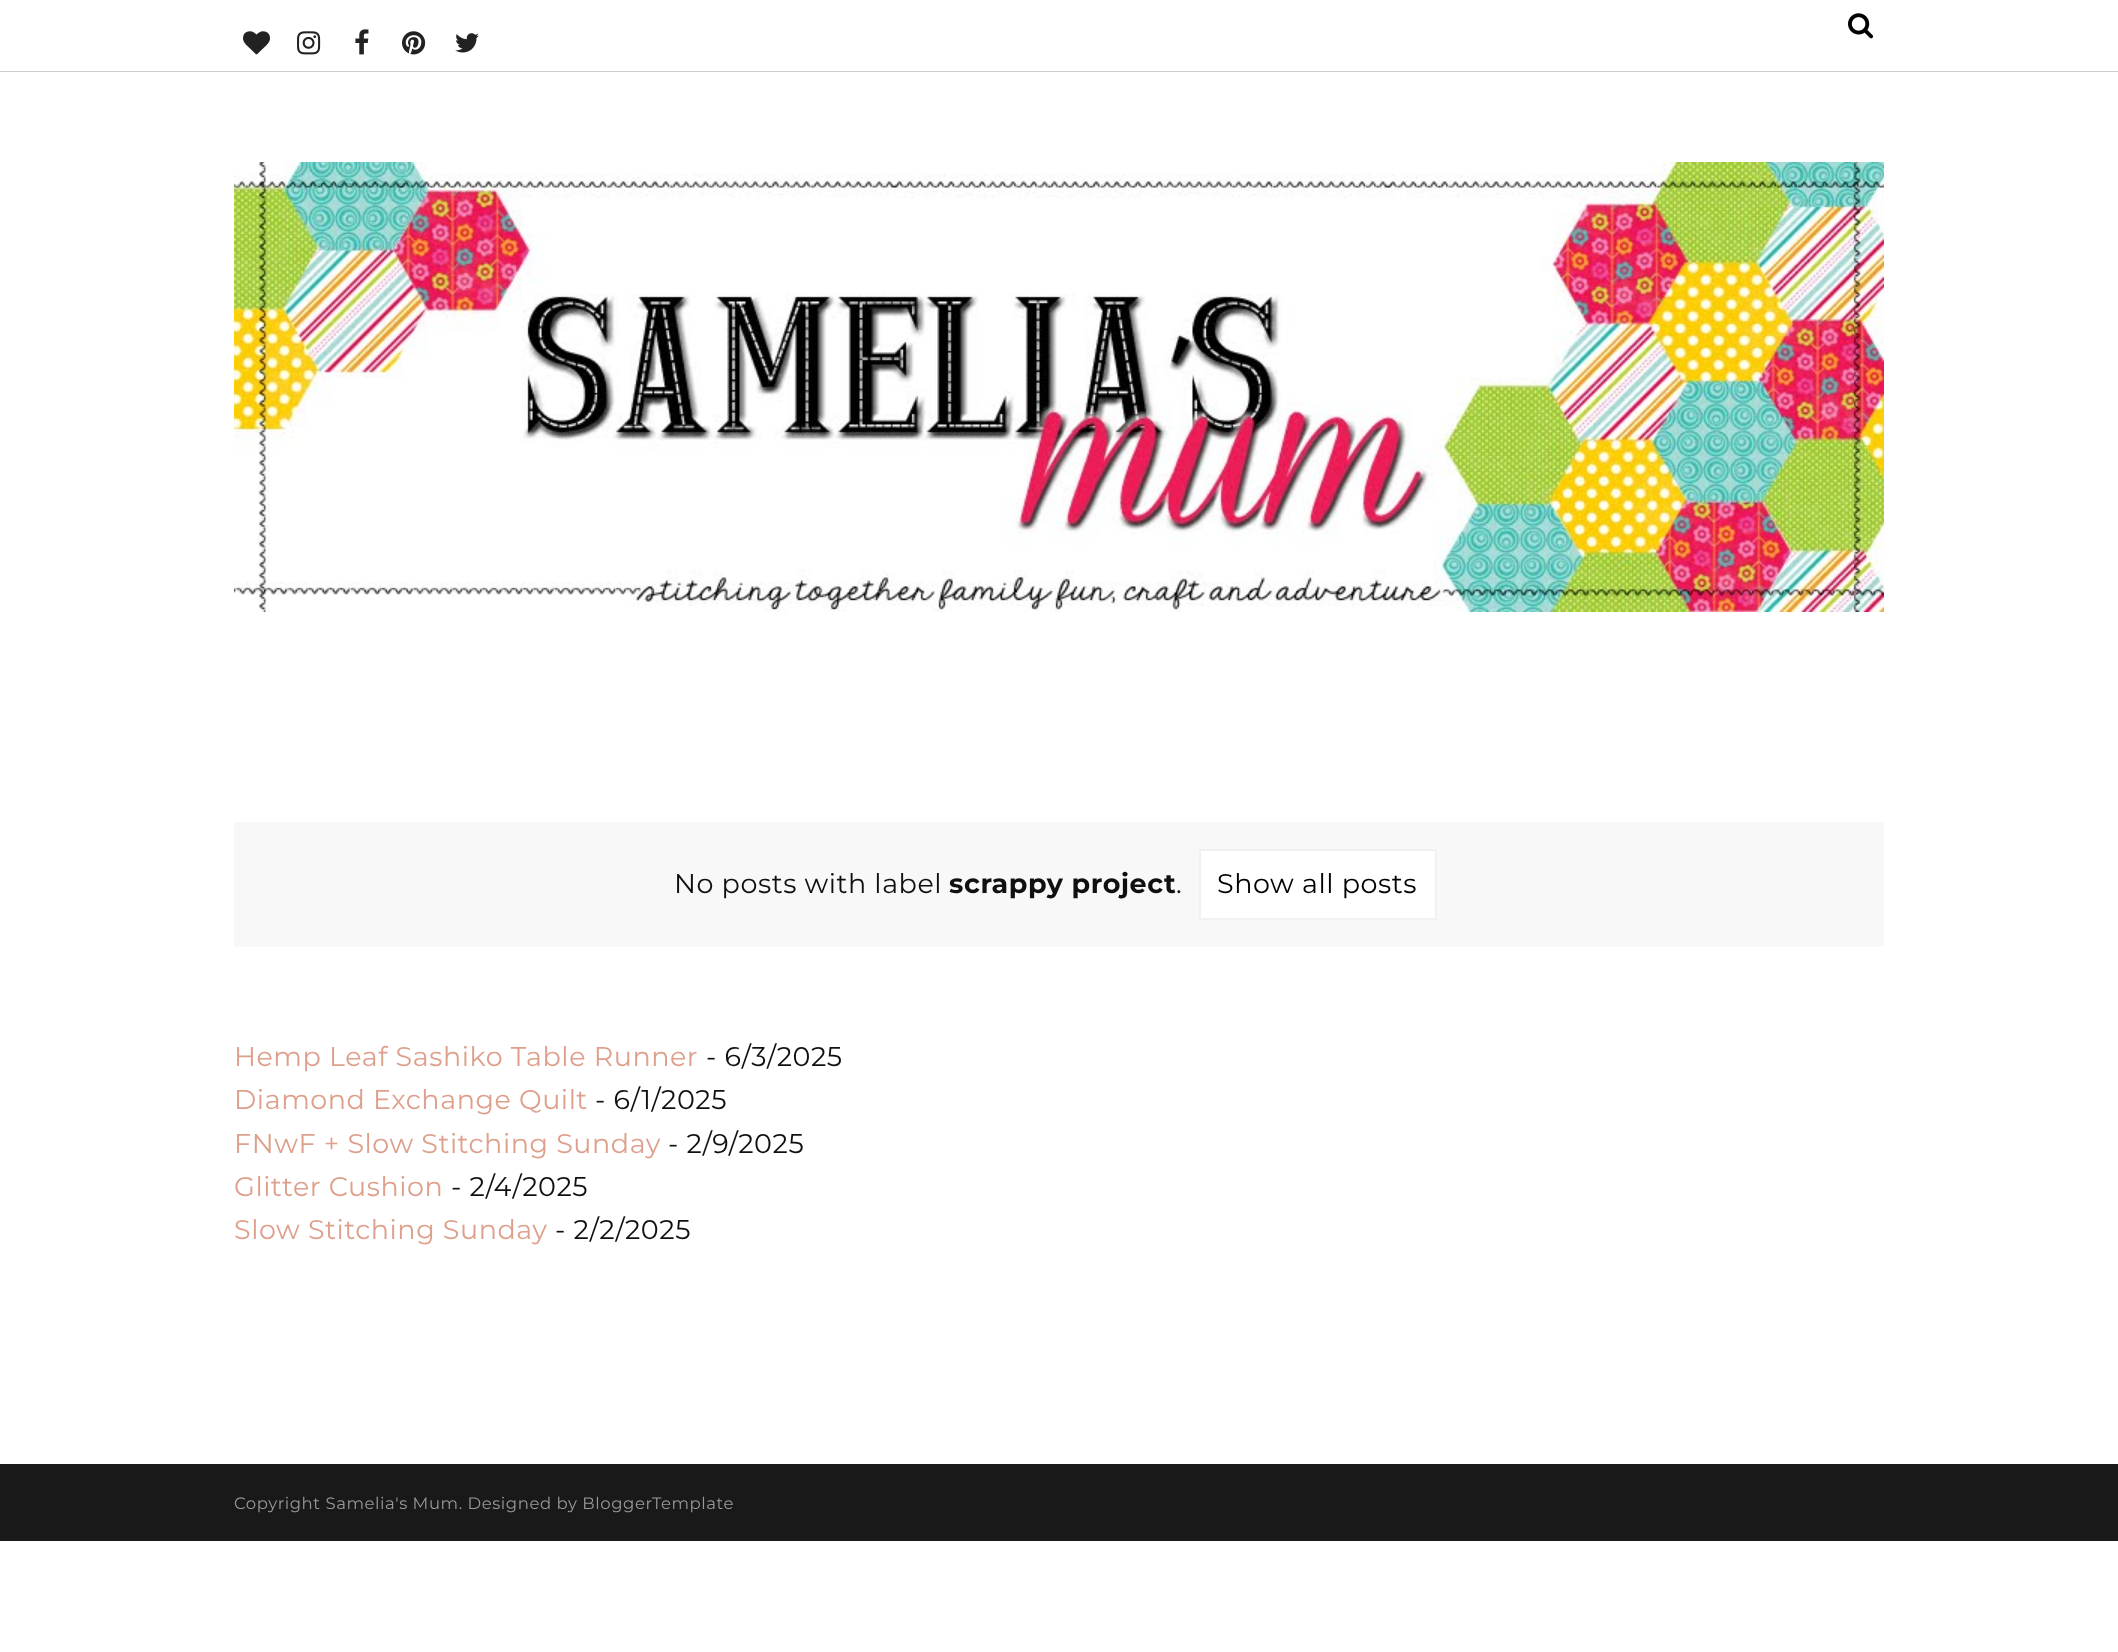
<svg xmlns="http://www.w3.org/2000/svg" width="2118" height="1652">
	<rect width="100%" height="100%" fill="#FFFFFF" />
	<rect x="0" y="71" width="2118" height="1" fill="#CCCCCC" />
	<image x="1848" y="13" width="26" height="26" href="assets/img1.png" />
	<image x="243" y="31" width="27" height="24" href="assets/img2.png" />
	<image x="297" y="31" width="24" height="24" href="assets/img3.png" />
	<image x="355" y="29" width="14" height="26" href="assets/img4.png" />
	<image x="402" y="31" width="24" height="24" href="assets/img5.png" />
	<image x="455" y="33" width="24" height="20" href="assets/img6.png" />
	<image x="234" y="162" width="1650" height="450" href="assets/img7.png" />
	<rect x="234" y="822" width="1650" height="125" fill="#F8F8F8" />
	<text x="674" y="893" font-family="Montserrat" font-size="27" font-weight="100" letter-spacing="0.55" fill="#101010">No posts with label</text>
	<text x="949" y="893" font-family="'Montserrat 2'" font-size="27" font-weight="100" letter-spacing="0.55" fill="#101010">scrappy project</text>
	<text x="1176" y="893" font-family="Montserrat" font-size="27" font-weight="100" letter-spacing="0.55" fill="#101010">.</text>
	<rect x="1200" y="850" width="236" height="69" fill="#FFFFFF" stroke="#F1F1F1" stroke-width="2" />
	<text x="1217" y="893" font-family="Montserrat" font-size="27" font-weight="100" letter-spacing="0.55" fill="#000000">Show all posts</text>
	<text x="234" y="1066" font-family="Montserrat" font-size="27" font-weight="100" letter-spacing="0.55" fill="#DEA08C">Hemp Leaf Sashiko Table Runner</text>
	<text x="706" y="1066" font-family="Montserrat" font-size="27" font-weight="100" letter-spacing="0.55" fill="#101010">- 6/3/2025</text>
	<text x="234" y="1109" font-family="Montserrat" font-size="27" font-weight="100" letter-spacing="0.55" fill="#DEA08C">Diamond Exchange Quilt</text>
	<text x="595" y="1109" font-family="Montserrat" font-size="27" font-weight="100" letter-spacing="0.55" fill="#101010">- 6/1/2025</text>
	<text x="234" y="1153" font-family="Montserrat" font-size="27" font-weight="100" letter-spacing="0.55" fill="#DEA08C">FNwF + Slow Stitching Sunday</text>
	<text x="668" y="1153" font-family="Montserrat" font-size="27" font-weight="100" letter-spacing="0.55" fill="#101010">- 2/9/2025</text>
	<text x="234" y="1196" font-family="Montserrat" font-size="27" font-weight="100" letter-spacing="0.55" fill="#DEA08C">Glitter Cushion</text>
	<text x="451" y="1196" font-family="Montserrat" font-size="27" font-weight="100" letter-spacing="0.55" fill="#101010">- 2/4/2025</text>
	<text x="234" y="1239" font-family="Montserrat" font-size="27" font-weight="100" letter-spacing="0.55" fill="#DEA08C">Slow Stitching Sunday</text>
	<text x="555" y="1239" font-family="Montserrat" font-size="27" font-weight="100" letter-spacing="0.55" fill="#101010">- 2/2/2025</text>
	<rect x="0" y="1464" width="2118" height="77" fill="#191919" />
	<text x="234" y="1509" font-family="Montserrat" font-size="16.5" font-weight="100" letter-spacing="0.55" fill="#999999">Copyright Samelia's Mum. Designed by BloggerTemplate</text>
</svg>
